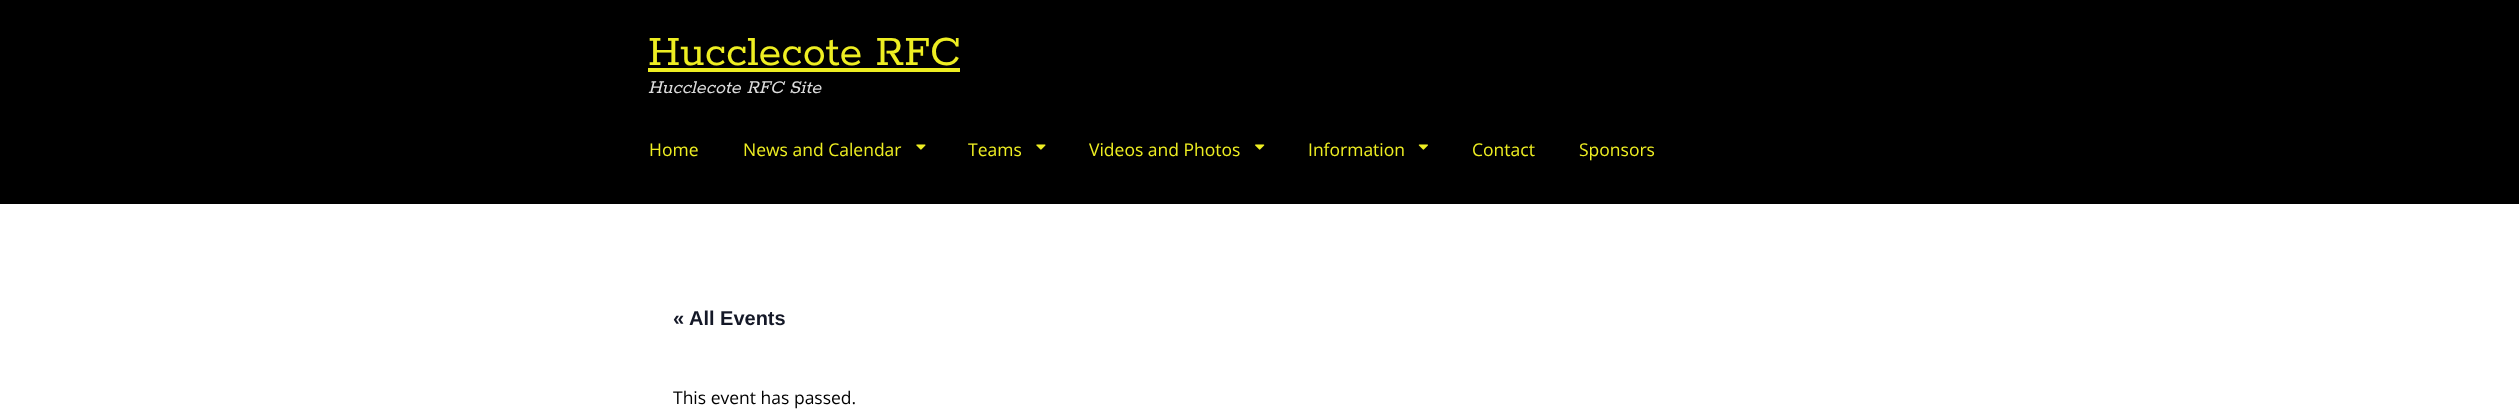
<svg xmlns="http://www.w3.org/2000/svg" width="2519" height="415">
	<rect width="100%" height="100%" fill="#FFFFFF" />
	<rect x="0" y="0" width="2519" height="204" fill="#000000" />
	<text x="648" y="65" font-family="Rokkitt" font-size="46.25" fill="#EEEE22">Hucclecote RFC</text>
	<rect x="648" y="68" width="312" height="4" fill="#EEEE22" />
	<text x="648" y="93" font-family="Rokkitt" font-size="20" font-style="italic" fill="#DDDDDD">Hucclecote RFC Site</text>
	<g font-family="Open Sans" font-size="17.5" fill="#EEEE22">
		<text x="649" y="156">Home</text>
		<text x="743" y="156">News and Calendar</text>
	</g>
	<image x="916" y="144" width="10" height="6" href="assets/img1.png" />
	<text x="968" y="156" font-family="Open Sans" font-size="17.5" fill="#EEEE22">Teams</text>
	<image x="1036" y="144" width="10" height="6" href="assets/img1.png" />
	<text x="1089" y="156" font-family="Open Sans" font-size="17.5" fill="#EEEE22">Videos and Photos</text>
	<image x="1255" y="144" width="10" height="6" href="assets/img2.png" />
	<text x="1308" y="156" font-family="Open Sans" font-size="17.5" fill="#EEEE22">Information</text>
	<image x="1418" y="144" width="10" height="6" href="assets/img3.png" />
	<g font-family="Open Sans" font-size="17.5" fill="#EEEE22">
		<text x="1472" y="156">Contact</text>
		<text x="1579" y="156">Sponsors</text>
	</g>
	<text x="673" y="325" font-family="Liberation Sans" font-size="20" font-weight="700" fill="#141827">« All Events</text>
	<text x="673" y="404" font-family="Open Sans" font-size="17.5" fill="#000000">This event has passed.</text>
</svg>
